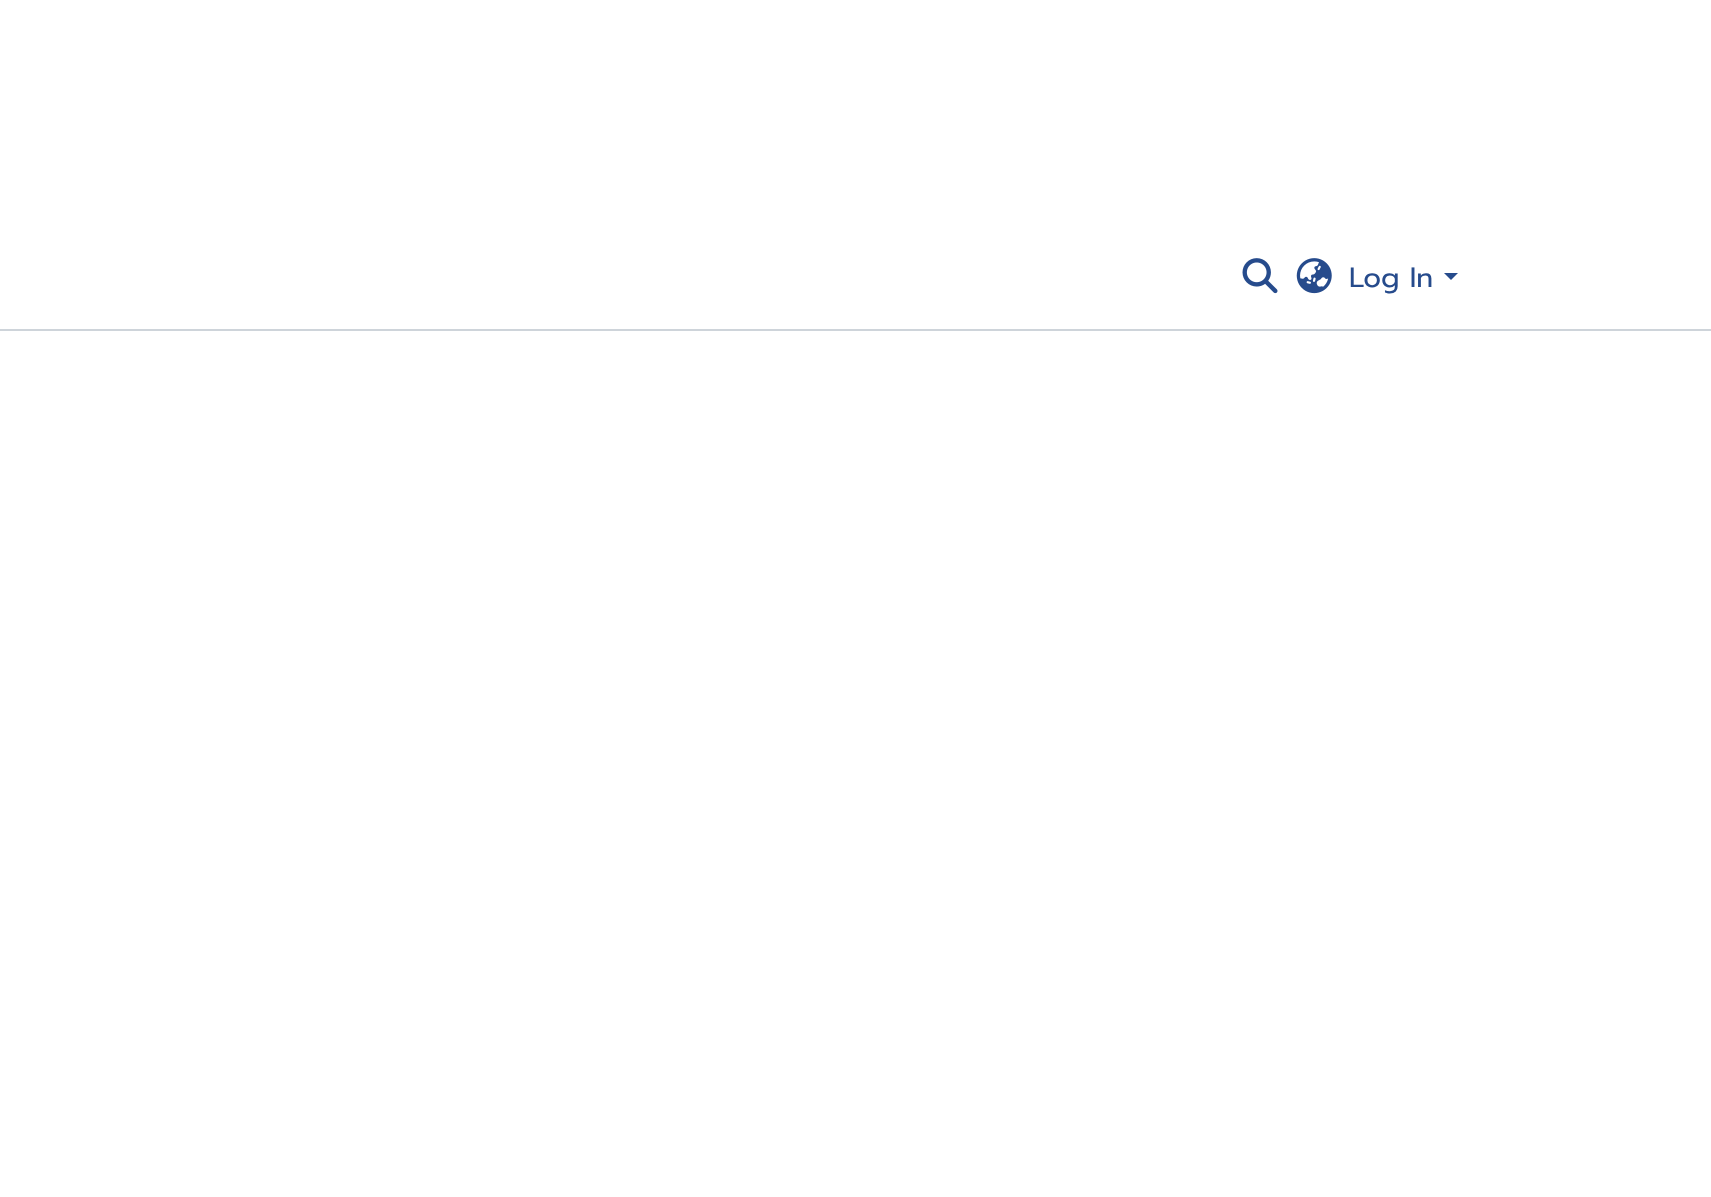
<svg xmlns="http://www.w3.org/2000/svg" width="1711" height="1197">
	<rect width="100%" height="100%" fill="#FFFFFF" />
	<rect x="0" y="329" width="1711" height="2" fill="#CED4DA" />
	<image x="1242" y="258" width="36" height="36" href="assets/img1.png" />
	<image x="1296" y="258" width="36" height="36" href="assets/img2.png" />
	<text x="1349" y="287" font-family="Prompt" font-size="28" fill="#264B8C">Log In</text>
	<path d="M1444 273H1458L1451 280Z" fill="#264B8C" />
</svg>
